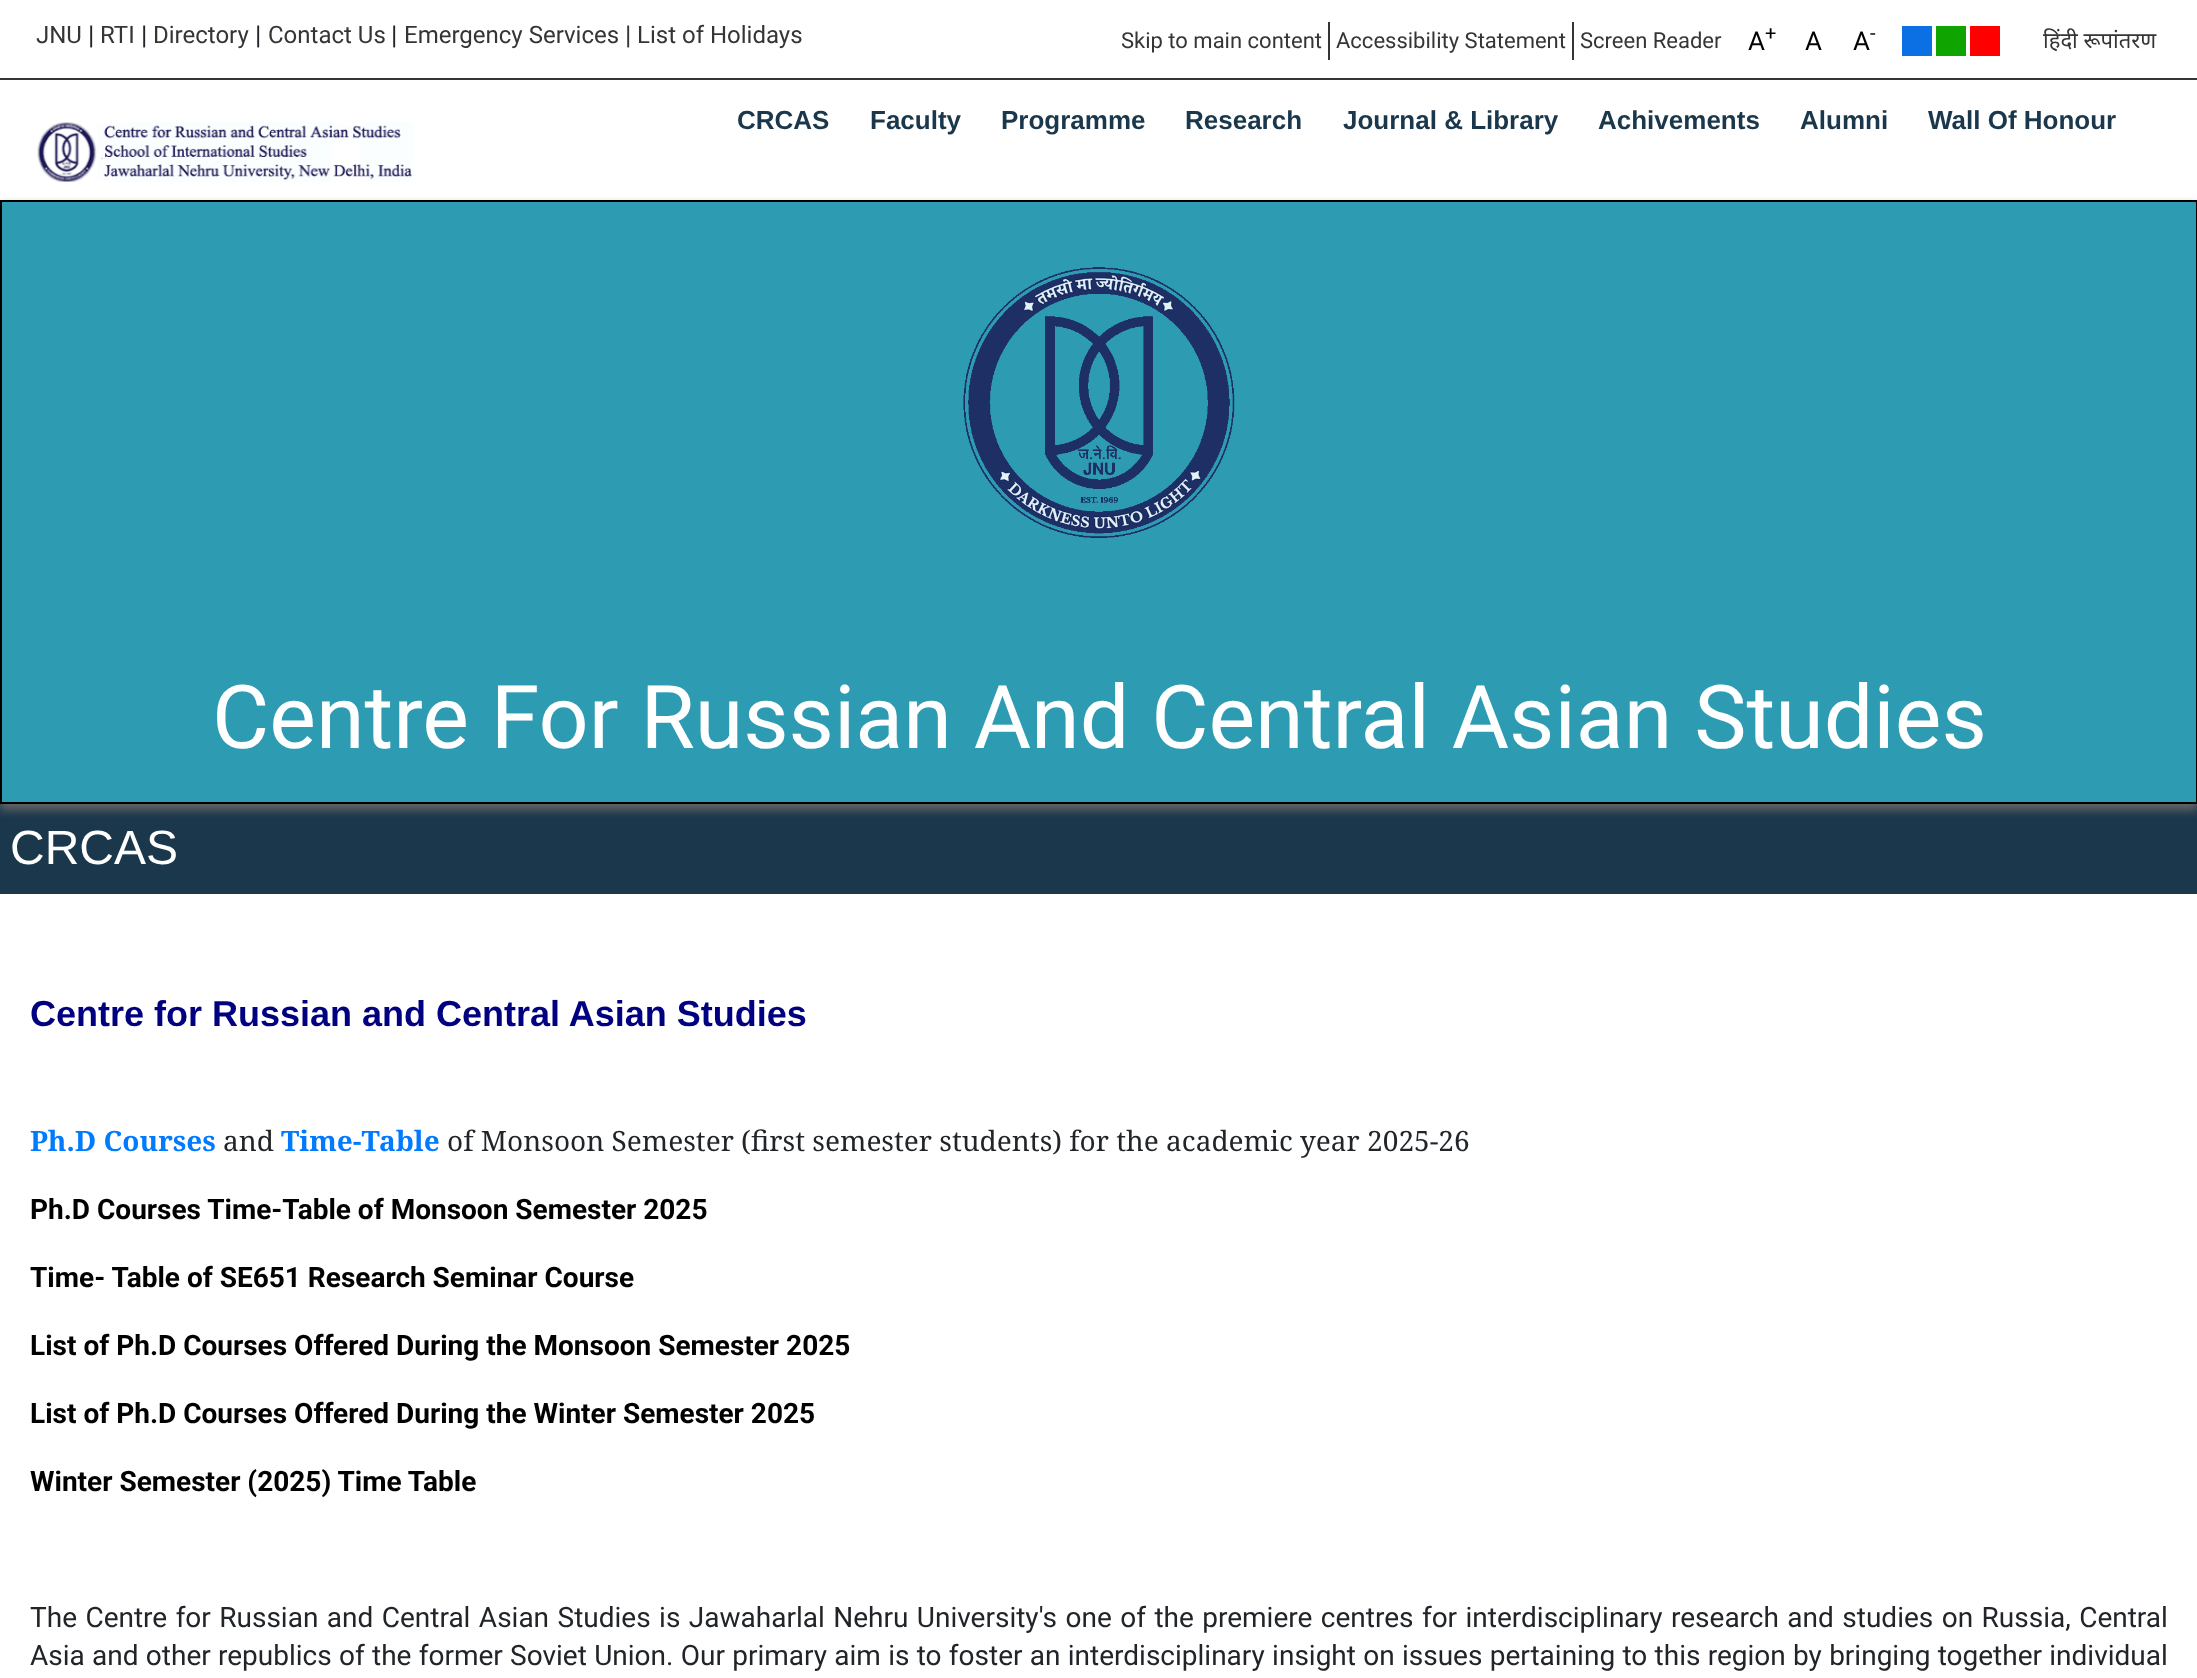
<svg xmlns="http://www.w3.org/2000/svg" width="2197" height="1678">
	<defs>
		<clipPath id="clip1"><path d="M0 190H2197V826H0ZM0 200H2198V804H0Z" clip-rule="evenodd" /></clipPath>
	</defs>
	<rect width="100%" height="100%" fill="#FFFFFF" />
	<rect x="0" y="78" width="2197" height="2" fill="#373434" />
	<text x="36" y="43" font-family="Roboto" font-size="24" fill="#373434">JNU</text>
	<text x="88" y="44" font-family="Roboto" font-size="26" fill="#212529">|</text>
	<text x="100" y="43" font-family="Roboto" font-size="24" fill="#373434">RTI</text>
	<text x="141" y="44" font-family="Roboto" font-size="26" fill="#212529">|</text>
	<text x="153" y="43" font-family="Roboto" font-size="24" fill="#373434">Directory</text>
	<text x="255" y="44" font-family="Roboto" font-size="26" fill="#212529">|</text>
	<text x="268" y="43" font-family="Roboto" font-size="24" fill="#373434">Contact Us</text>
	<text x="391" y="44" font-family="Roboto" font-size="26" fill="#212529">|</text>
	<text x="404" y="43" font-family="Roboto" font-size="24" fill="#373434">Emergency Services</text>
	<text x="625" y="44" font-family="Roboto" font-size="26" fill="#373434">|</text>
	<text x="637" y="43" font-family="Roboto" font-size="24" fill="#373434">List of Holidays</text>
	<rect x="1328" y="22" width="2" height="38" fill="#373434" />
	<text x="1121" y="48" font-family="Roboto" font-size="22" fill="#373434">Skip to main content</text>
	<rect x="1572" y="22" width="2" height="38" fill="#373434" />
	<g font-family="Roboto" font-size="22" fill="#373434">
		<text x="1336" y="48">Accessibility Statement</text>
		<text x="1580" y="48">Screen Reader</text>
	</g>
	<text x="1748" y="50" font-family="Roboto" font-size="26" fill="#000000">A</text>
	<text x="1765" y="40" font-family="Roboto" font-size="20" fill="#000000">+</text>
	<g font-family="Roboto" font-size="26" fill="#000000">
		<text x="1805" y="50">A</text>
		<text x="1853" y="50">A</text>
	</g>
	<text x="1870" y="40" font-family="Roboto" font-size="20" fill="#000000">-</text>
	<rect x="1902" y="26" width="30" height="30" fill="#0A70E3" />
	<rect x="1936" y="26" width="30" height="30" fill="#0FA400" />
	<rect x="1970" y="26" width="30" height="30" fill="#FF0000" />
	<text x="2043" y="48" font-family="Noto Sans" font-size="22" fill="#373434">हिंदी रूपांतरण</text>
	<image x="37" y="122" width="376" height="60" href="assets/img1.png" />
	<g font-family="Liberation Sans" font-size="26" font-weight="700" fill="#1B374C">
		<text x="737" y="129">CRCAS</text>
		<text x="870" y="129">Faculty</text>
		<text x="1001" y="129">Programme</text>
		<text x="1185" y="129">Research</text>
		<text x="1343" y="129">Journal &amp; Library</text>
		<text x="1598" y="129">Achivements</text>
		<text x="1800" y="129">Alumni</text>
		<text x="1928" y="129">Wall Of Honour</text>
	</g>
	<rect x="2" y="202" width="2194" height="600" fill="#2D9BB2" />
	<rect x="0" y="804" width="2197" height="90" fill="#1B374C" />
	<g clip-path="url(#clip1)">
		<rect x="0" y="206" width="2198" height="604" fill="#666666" filter="blur(5px)" />
	</g>
	<rect x="1" y="201" width="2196" height="602" fill="none" stroke="#000000" stroke-width="2" />
	<image x="963" y="267" width="272" height="271" href="assets/img2.png" />
	<text x="212" y="748" font-family="Roboto" font-size="88" fill="#FFFFFF">Centre For Russian And Central Asian Studies</text>
	<text x="10" y="864" font-family="Liberation Sans" font-size="48" fill="#FFFFFF">CRCAS</text>
	<text x="30" y="1026" font-family="Liberation Sans" font-size="36" font-weight="700" fill="#000080">Centre for Russian and Central Asian Studies</text>
	<text x="30" y="1151" font-family="Noto Serif" font-size="28" font-weight="700" fill="#007BFF">Ph.D Courses</text>
	<text x="223" y="1151" font-family="Noto Serif" font-size="28" fill="#212529">and</text>
	<text x="281" y="1151" font-family="Noto Serif" font-size="28" font-weight="700" fill="#007BFF">Time-Table</text>
	<text x="447" y="1151" font-family="Noto Serif" font-size="28" fill="#212529">of Monsoon Semester (first semester students) for the academic year 2025-26</text>
	<g font-family="Roboto" font-size="28" font-weight="700" fill="#000000">
		<text x="30" y="1219">Ph.D Courses Time-Table of Monsoon Semester 2025</text>
		<text x="30" y="1287">Time- Table of SE651 Research Seminar Course</text>
		<text x="30" y="1355">List of Ph.D Courses Offered During the Monsoon Semester 2025</text>
		<text x="30" y="1423">List of Ph.D Courses Offered During the Winter Semester 2025</text>
		<text x="30" y="1491">Winter Semester (2025) Time Table</text>
	</g>
	<g font-family="Roboto" font-size="28" fill="#212529">
		<text x="30" y="1627" word-spacing="1.5">The Centre for Russian and Central Asian Studies is Jawaharlal Nehru University's one of the premiere centres for interdisciplinary research and studies on Russia, Central</text>
		<text x="30" y="1665" word-spacing="0.35">Asia and other republics of the former Soviet Union. Our primary aim is to foster an interdisciplinary insight on issues pertaining to this region by bringing together individual</text>
	</g>
</svg>
